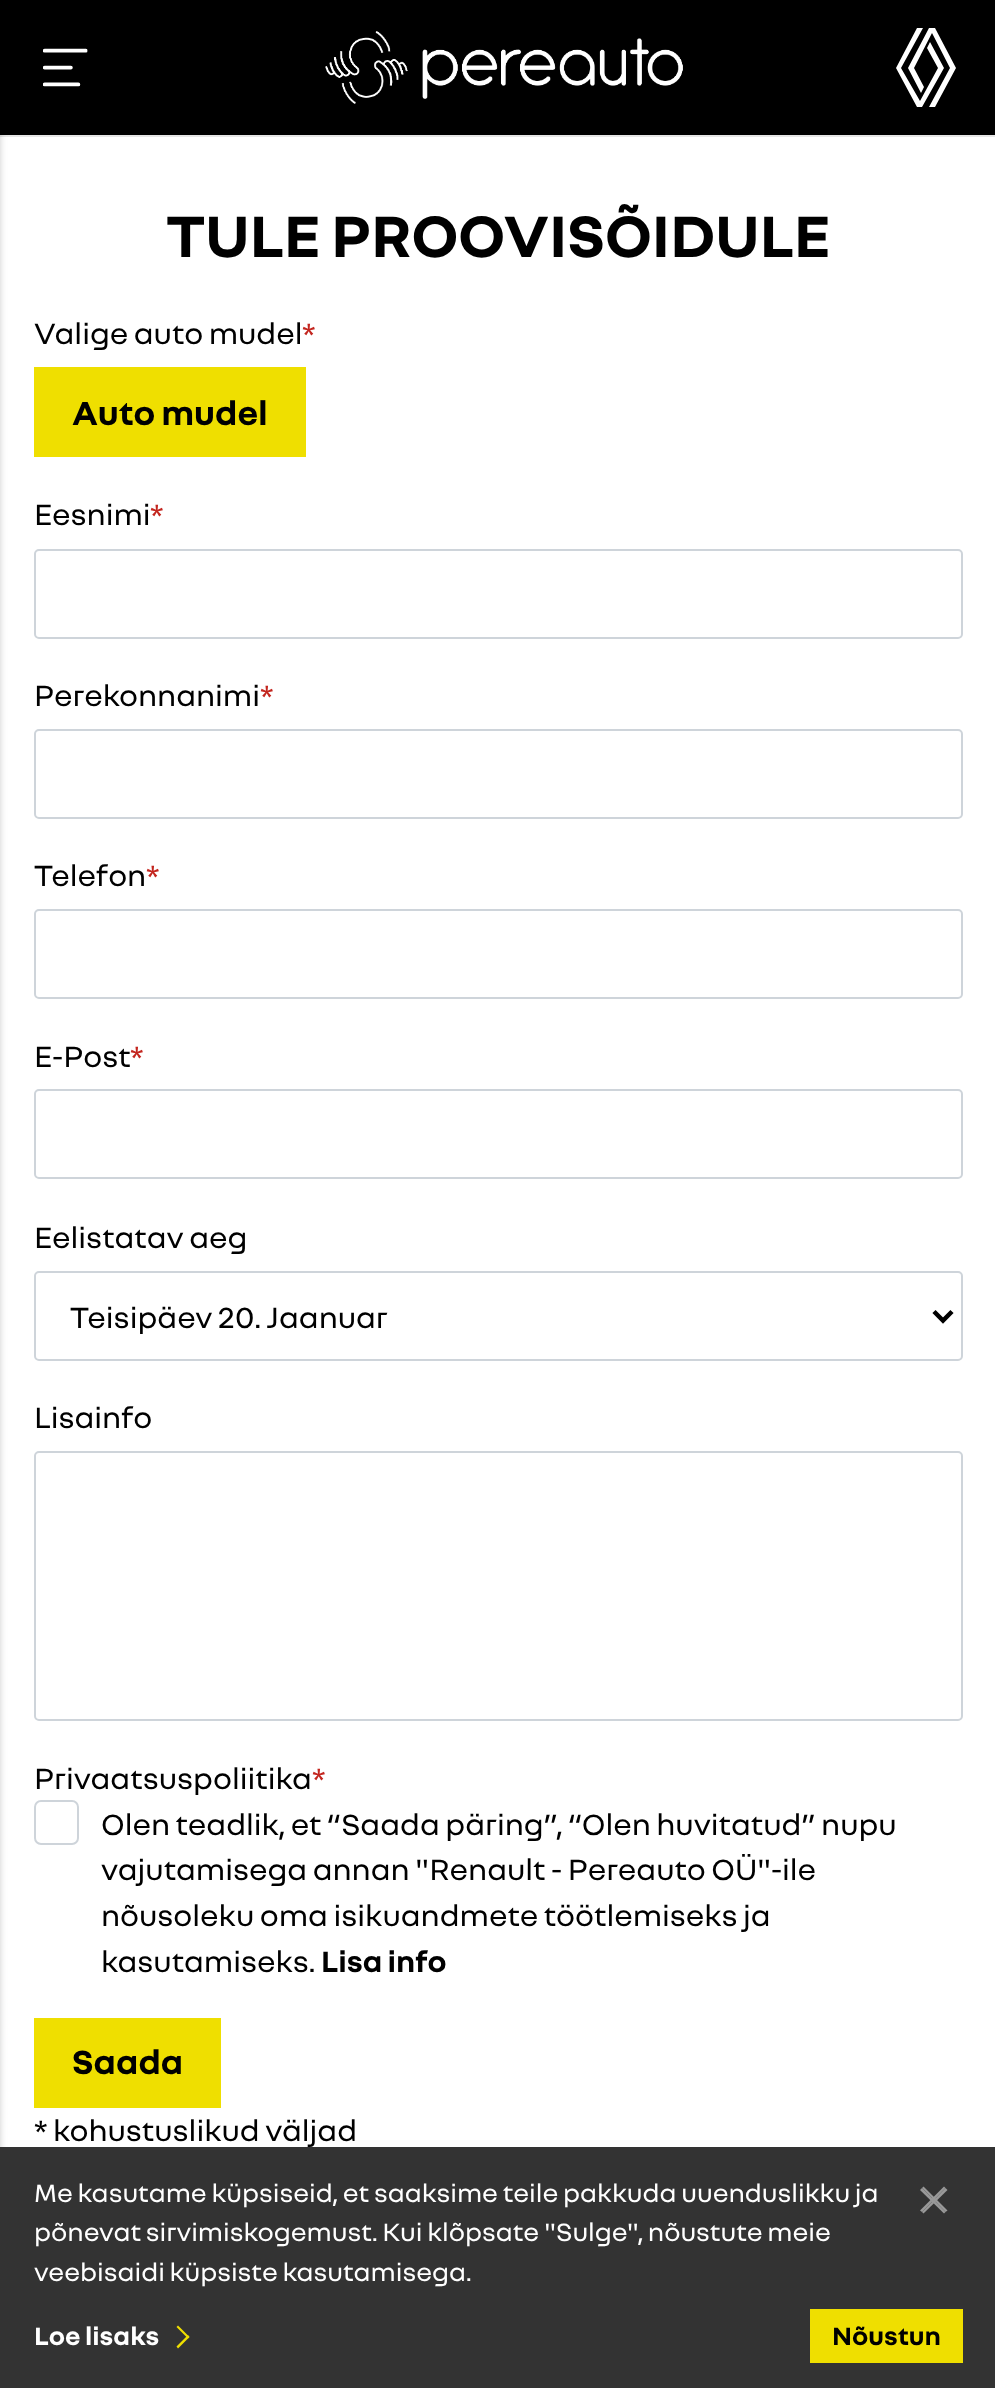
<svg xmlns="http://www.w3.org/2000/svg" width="995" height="2388">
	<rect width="100%" height="100%" fill="#FFFFFF" />
	<path d="M0 135V137H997V2V135Z" fill="#E6E6E6" />
	<rect x="0" y="0" width="995" height="135" fill="#000000" />
	<image x="43" y="48" width="45" height="39" href="assets/img1.png" />
	<image x="325" y="31" width="358" height="73" href="assets/img2.png" />
	<path d="M944 68L922 107H917L896 68L917 28H923L901 68L920 101L938 68L927 48L930 42ZM935 28H929L908 68L921 93L924 87L914 68L932 33L950 68L929 107H935L956 68Z" fill="#FFFFFF" />
	<rect x="-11" y="0" width="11" height="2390" fill="#000000" fill-opacity="0.2" filter="blur(3.5px)" />
	<text x="166" y="257" font-family="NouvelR" font-size="63" font-weight="700" fill="#000000">TULE PROOVISÕIDULE</text>
	<text x="34" y="344" font-family="NouvelR" font-size="31.5" fill="#000000">Valige auto mudel</text>
	<text x="302" y="344" font-family="NouvelR" font-size="31.5" fill="#C3261F">*</text>
	<rect x="34" y="367" width="272" height="90" fill="#EFDF00" />
	<text x="72" y="425" font-family="NouvelR" font-size="36" font-weight="700" fill="#000000">Auto mudel</text>
	<text x="34" y="525" font-family="NouvelR" font-size="31.5" fill="#000000">Eesnimi</text>
	<text x="150" y="525" font-family="NouvelR" font-size="31.5" fill="#C3261F">*</text>
	<rect x="35" y="550" width="927" height="88" rx="4" fill="none" stroke="#CED4DA" stroke-width="2" />
	<text x="34" y="706" font-family="NouvelR" font-size="31.5" fill="#000000">Perekonnanimi</text>
	<text x="260" y="706" font-family="NouvelR" font-size="31.5" fill="#C3261F">*</text>
	<rect x="35" y="730" width="927" height="88" rx="4" fill="none" stroke="#CED4DA" stroke-width="2" />
	<text x="34" y="886" font-family="NouvelR" font-size="31.5" fill="#000000">Telefon</text>
	<text x="146" y="886" font-family="NouvelR" font-size="31.5" fill="#C3261F">*</text>
	<rect x="35" y="910" width="927" height="88" rx="4" fill="none" stroke="#CED4DA" stroke-width="2" />
	<text x="34" y="1067" font-family="NouvelR" font-size="31.5" fill="#000000">E-Post</text>
	<text x="130" y="1067" font-family="NouvelR" font-size="31.5" fill="#C3261F">*</text>
	<rect x="35" y="1090" width="927" height="88" rx="4" fill="none" stroke="#CED4DA" stroke-width="2" />
	<text x="34" y="1248" font-family="NouvelR" font-size="31.5" fill="#000000">Eelistatav aeg</text>
	<rect x="35" y="1272" width="927" height="88" rx="4" fill="none" stroke="#CED4DA" stroke-width="2" />
	<path d="M934 1311.5L943 1320.5L952 1311.5" fill="none" stroke="#000000" stroke-width="4.5" />
	<g font-family="NouvelR" font-size="31.5" fill="#000000">
		<text x="70" y="1328">Teisipäev 20. Jaanuar</text>
		<text x="34" y="1428">Lisainfo</text>
	</g>
	<rect x="35" y="1452" width="927" height="268" rx="4" fill="none" stroke="#CED4DA" stroke-width="2" />
	<text x="34" y="1789" font-family="NouvelR" font-size="31.5" fill="#000000">Privaatsuspoliitika</text>
	<text x="312" y="1789" font-family="NouvelR" font-size="31.5" fill="#C3261F">*</text>
	<rect x="35" y="1801" width="43" height="43" rx="6" fill="none" stroke="#CED4DA" stroke-width="2" />
	<g font-family="NouvelR" font-size="31.5" fill="#000000">
		<text x="101" y="1835">Olen teadlik, et “Saada päring”, “Olen huvitatud” nupu</text>
		<text x="101" y="1880">vajutamisega annan "Renault - Pereauto OÜ"-ile</text>
		<text x="101" y="1926">nõusoleku oma isikuandmete töötlemiseks ja</text>
		<text x="101" y="1972">kasutamiseks.</text>
	</g>
	<text x="321" y="1972" font-family="NouvelR" font-size="31.5" font-weight="700" fill="#000000">Lisa info</text>
	<rect x="34" y="2018" width="187" height="90" fill="#EFDF00" />
	<text x="72" y="2074" font-family="NouvelR" font-size="36" font-weight="700" fill="#000000">Saada</text>
	<text x="34" y="2141" font-family="NouvelR" font-size="31.5" fill="#000000">* kohustuslikud väljad</text>
	<rect x="0" y="2147" width="995" height="241" fill="#333333" />
	<g font-family="NouvelR" font-size="27" fill="#FFFFFF">
		<text x="34" y="2202">Me kasutame küpsiseid, et saaksime teile pakkuda uuenduslikku ja</text>
		<text x="34" y="2241">põnevat sirvimiskogemust. Kui klõpsate "Sulge", nõustute meie</text>
		<text x="34" y="2281">veebisaidi küpsiste kasutamisega.</text>
	</g>
	<text x="34" y="2345" font-family="NouvelR" font-size="27" font-weight="700" fill="#FFFFFF">Loe lisaks</text>
	<path d="M178 2325.5L189.5 2337L188 2338.5L176.5 2327Z" fill="#EFDF00" />
	<path d="M188 2335L189.5 2337L178 2348.5L176.5 2346.5Z" fill="#EFDF00" />
	<rect x="810" y="2309" width="153" height="54" fill="#EFDF00" />
	<text x="832" y="2345" font-family="NouvelR" font-size="27" font-weight="700" fill="#000000">Nõustun</text>
	<path d="M920 2210.5L944 2186.5L945.5 2188L922 2212Z" fill="#999999" />
	<path d="M922 2212L945.5 2188L947.5 2190L923.5 2213.5Z" fill="#999999" />
	<path d="M923.5 2186.5L947.5 2210.5L945.5 2212L922 2188Z" fill="#999999" />
	<path d="M922 2188L945.5 2212L944 2213.5L920 2190Z" fill="#999999" />
</svg>
